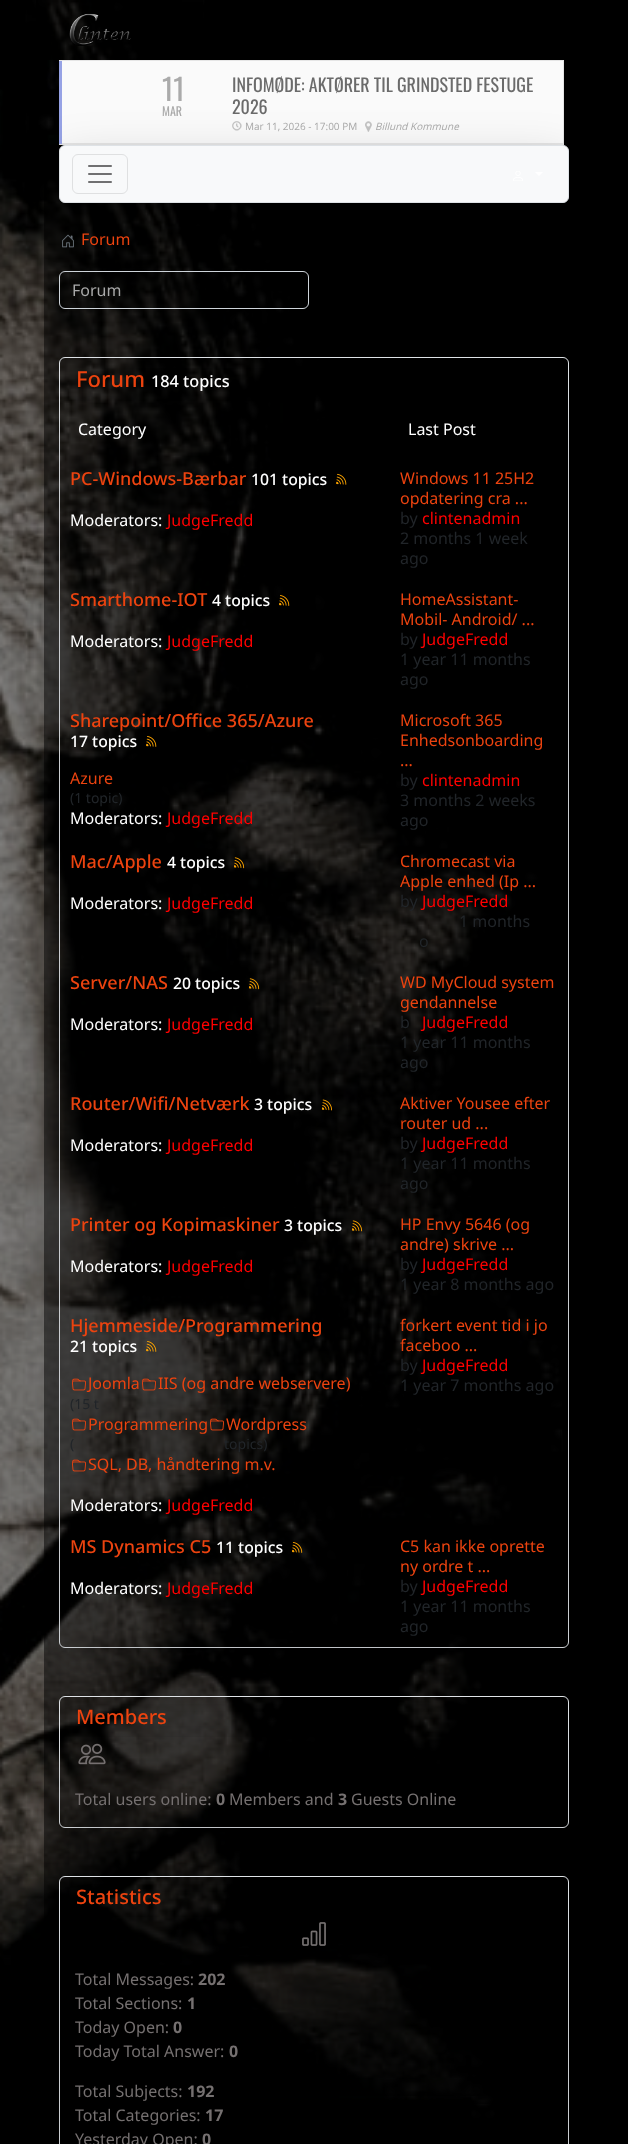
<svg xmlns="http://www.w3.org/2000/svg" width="628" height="2144">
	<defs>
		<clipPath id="clip1"><path d="M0 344H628V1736H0ZM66 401H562C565.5 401 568 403.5 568 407V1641C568 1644.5 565.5 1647 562 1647H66C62.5 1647 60 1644.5 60 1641V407C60 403.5 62.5 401 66 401Z" clip-rule="evenodd" /></clipPath>
		<clipPath id="clip2"><path d="M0 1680H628V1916H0ZM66 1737H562C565.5 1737 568 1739.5 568 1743V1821C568 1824.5 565.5 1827 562 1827H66C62.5 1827 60 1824.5 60 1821V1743C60 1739.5 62.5 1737 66 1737Z" clip-rule="evenodd" /></clipPath>
		<clipPath id="clip3"><path d="M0 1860H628V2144H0ZM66 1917H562C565.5 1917 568 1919.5 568 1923V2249C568 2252.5 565.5 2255 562 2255H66C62.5 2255 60 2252.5 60 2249V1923C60 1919.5 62.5 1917 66 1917Z" clip-rule="evenodd" /></clipPath>
	</defs>
	<rect width="100%" height="100%" fill="#FFFFFF" />
	<image x="0" y="0" width="628" height="2144" href="assets/img1.png" />
	<rect x="36" y="0" width="167" height="60" fill="#000000" fill-opacity="0.8" />
	<image x="69" y="13" width="62" height="33" href="assets/img2.png" />
	<rect x="59" y="60" width="505" height="1" fill="#E5E5E5" />
	<rect x="563" y="60" width="1" height="85" fill="#E5E5E5" />
	<rect x="59" y="144" width="505" height="1" fill="#E5E5E5" />
	<rect x="62" y="61" width="501" height="82" fill="#FAFAFA" />
	<rect x="59" y="143" width="504" height="1" fill="#E5E5E5" />
	<rect x="59" y="61" width="3" height="83" fill="#96A2E5" />
	<text x="162" y="101" font-family="Oswald" font-size="30" fill="#AAAAAA">11</text>
	<text x="162" y="116" font-family="Oswald" font-size="12" fill="#AAAAAA">MAR</text>
	<g font-family="Oswald" font-size="18" fill="#6B6B6B">
		<text x="232" y="92">INFOMØDE: AKTØRER TIL GRINDSTED FESTUGE</text>
		<text x="232" y="114">2026</text>
	</g>
	<image x="232" y="121" width="10" height="10" href="assets/img3.png" />
	<text x="245" y="130" font-family="Open Sans" font-size="10" fill="#AAAAAA">Mar 11, 2026 - 17:00 PM</text>
	<image x="365" y="121" width="7" height="11" href="assets/img4.png" />
	<text x="375" y="130" font-family="Open Sans" font-size="10" font-style="italic" fill="#AAAAAA">Billund Kommune</text>
	<rect x="0" y="145" width="561" height="1959" fill="#000000" fill-opacity="0.49" />
	<rect x="44" y="145" width="507" height="1951" fill="#000000" fill-opacity="0.49" />
	<image x="62" y="234" width="12" height="14" href="assets/img7.png" />
	<rect x="59.5" y="271.5" width="249" height="37" rx="5.5" fill="none" stroke="#CED4DA" />
	<rect x="59" y="161" width="510" height="58" rx="6" fill="#000000" fill-opacity="0.18" filter="blur(24px)" />
	<rect x="59.5" y="145.5" width="509" height="57" rx="5.5" fill="#F8F9FA" stroke="#DEE2E6" />
	<rect x="72.5" y="154.5" width="55" height="39" rx="5.5" fill="none" stroke="#DFE0E1" />
	<image x="88" y="165" width="24" height="18" href="assets/img5.png" />
	<image x="513" y="171" width="10" height="10" href="assets/img6.png" />
	<path d="M535 172H543L539 176Z" fill="#FFFFFF" />
	<text x="81" y="245" font-family="Noto Sans" font-size="16" fill="#EC430F">Forum</text>
	<text x="72" y="296" font-family="Noto Sans" font-size="16" fill="#AAAAAA">Forum</text>
	<rect x="59.5" y="357.5" width="509" height="1290" rx="5.5" fill="none" stroke="#DEE2E6" />
	<g clip-path="url(#clip1)">
		<rect x="60" y="417" width="508" height="1246" rx="6" fill="#000000" fill-opacity="0.18" filter="blur(24px)" />
	</g>
	<text x="76" y="387" font-family="Noto Sans" font-size="22" font-weight="500" fill="#EC430F">Forum</text>
	<text x="151" y="387" font-family="Noto Sans" font-size="16.25" font-weight="500" fill="#FFFFFF">184 topics</text>
	<g font-family="Noto Sans" font-size="16" fill="#FFFFFF">
		<text x="78" y="435">Category</text>
		<text x="408" y="435">Last Post</text>
	</g>
	<text x="70" y="485" font-family="Noto Sans" font-size="18" font-weight="500" fill="#EC430F">PC-Windows-Bærbar</text>
	<text x="251" y="485" font-family="Noto Sans" font-size="15.75" font-weight="500" fill="#FFFFFF">101 topics</text>
	<image x="336" y="473" width="11" height="12" href="assets/img8.png" />
	<text x="70" y="526" font-family="Noto Sans" font-size="16" fill="#FFFFFF">Moderators:</text>
	<text x="167" y="526" font-family="Noto Sans" font-size="16" fill="#FF0000">JudgeFredd</text>
	<g font-family="Noto Sans" font-size="16" fill="#EC430F">
		<text x="400" y="484">Windows 11 25H2</text>
		<text x="400" y="504">opdatering cra ...</text>
	</g>
	<text x="400" y="524" font-family="Noto Sans" font-size="16" fill="#212529">by</text>
	<text x="422" y="524" font-family="Noto Sans" font-size="16" fill="#FF0000">clintenadmin</text>
	<g font-family="Noto Sans" font-size="16" fill="#212529">
		<text x="400" y="544">2 months 1 week</text>
		<text x="400" y="564">ago</text>
	</g>
	<text x="70" y="606" font-family="Noto Sans" font-size="18" font-weight="500" fill="#EC430F">Smarthome-IOT</text>
	<text x="212" y="606" font-family="Noto Sans" font-size="15.75" font-weight="500" fill="#FFFFFF">4 topics</text>
	<image x="279" y="595" width="11" height="11" href="assets/img9.png" />
	<text x="70" y="647" font-family="Noto Sans" font-size="16" fill="#FFFFFF">Moderators:</text>
	<text x="167" y="647" font-family="Noto Sans" font-size="16" fill="#FF0000">JudgeFredd</text>
	<g font-family="Noto Sans" font-size="16" fill="#EC430F">
		<text x="400" y="605">HomeAssistant-</text>
		<text x="400" y="625">Mobil- Android/ ...</text>
	</g>
	<text x="400" y="645" font-family="Noto Sans" font-size="16" fill="#212529">by</text>
	<text x="422" y="645" font-family="Noto Sans" font-size="16" fill="#FF0000">JudgeFredd</text>
	<g font-family="Noto Sans" font-size="16" fill="#212529">
		<text x="400" y="665">1 year 11 months</text>
		<text x="400" y="685">ago</text>
	</g>
	<text x="70" y="727" font-family="Noto Sans" font-size="18" font-weight="500" fill="#EC430F">Sharepoint/Office 365/Azure</text>
	<text x="70" y="747" font-family="Noto Sans" font-size="15.75" font-weight="500" fill="#FFFFFF">17 topics</text>
	<image x="146" y="736" width="11" height="11" href="assets/img10.png" />
	<text x="70" y="784" font-family="Noto Sans" font-size="16" fill="#EC430F">Azure</text>
	<text x="70" y="803" font-family="Noto Sans" font-size="14" fill="#212529">(1 topic)</text>
	<text x="70" y="824" font-family="Noto Sans" font-size="16" fill="#FFFFFF">Moderators:</text>
	<text x="167" y="824" font-family="Noto Sans" font-size="16" fill="#FF0000">JudgeFredd</text>
	<g font-family="Noto Sans" font-size="16" fill="#EC430F">
		<text x="400" y="726">Microsoft 365</text>
		<text x="400" y="746">Enhedsonboarding</text>
		<text x="400" y="766">...</text>
	</g>
	<text x="400" y="786" font-family="Noto Sans" font-size="16" fill="#212529">by</text>
	<text x="422" y="786" font-family="Noto Sans" font-size="16" fill="#FF0000">clintenadmin</text>
	<g font-family="Noto Sans" font-size="16" fill="#212529">
		<text x="400" y="806">3 months 2 weeks</text>
		<text x="400" y="826">ago</text>
	</g>
	<text x="70" y="868" font-family="Noto Sans" font-size="18" font-weight="500" fill="#EC430F">Mac/Apple</text>
	<text x="167" y="868" font-family="Noto Sans" font-size="15.75" font-weight="500" fill="#FFFFFF">4 topics</text>
	<image x="234" y="857" width="11" height="12" href="assets/img11.png" />
	<text x="70" y="909" font-family="Noto Sans" font-size="16" fill="#FFFFFF">Moderators:</text>
	<text x="167" y="909" font-family="Noto Sans" font-size="16" fill="#FF0000">JudgeFredd</text>
	<g font-family="Noto Sans" font-size="16" fill="#EC430F">
		<text x="400" y="867">Chromecast via</text>
		<text x="400" y="887">Apple enhed (Ip ...</text>
	</g>
	<text x="400" y="907" font-family="Noto Sans" font-size="16" fill="#212529">by</text>
	<text x="422" y="907" font-family="Noto Sans" font-size="16" fill="#FF0000">JudgeFredd</text>
	<g font-family="Noto Sans" font-size="16" fill="#212529">
		<text x="459" y="927">1 months</text>
		<text x="419" y="947">o</text>
	</g>
	<text x="70" y="989" font-family="Noto Sans" font-size="18" font-weight="500" fill="#EC430F">Server/NAS</text>
	<text x="173" y="989" font-family="Noto Sans" font-size="15.75" font-weight="500" fill="#FFFFFF">20 topics</text>
	<image x="249" y="978" width="11" height="12" href="assets/img12.png" />
	<text x="70" y="1030" font-family="Noto Sans" font-size="16" fill="#FFFFFF">Moderators:</text>
	<text x="167" y="1030" font-family="Noto Sans" font-size="16" fill="#FF0000">JudgeFredd</text>
	<g font-family="Noto Sans" font-size="16" fill="#EC430F">
		<text x="400" y="988">WD MyCloud system</text>
		<text x="400" y="1008">gendannelse</text>
	</g>
	<text x="400" y="1028" font-family="Noto Sans" font-size="16" fill="#212529">b</text>
	<text x="422" y="1028" font-family="Noto Sans" font-size="16" fill="#FF0000">JudgeFredd</text>
	<g font-family="Noto Sans" font-size="16" fill="#212529">
		<text x="400" y="1048">1 year 11 months</text>
		<text x="400" y="1068">ago</text>
	</g>
	<text x="70" y="1110" font-family="Noto Sans" font-size="18" font-weight="500" fill="#EC430F">Router/Wifi/Netværk</text>
	<text x="254" y="1110" font-family="Noto Sans" font-size="15.75" font-weight="500" fill="#FFFFFF">3 topics</text>
	<image x="321" y="1099" width="11" height="12" href="assets/img13.png" />
	<text x="70" y="1151" font-family="Noto Sans" font-size="16" fill="#FFFFFF">Moderators:</text>
	<text x="167" y="1151" font-family="Noto Sans" font-size="16" fill="#FF0000">JudgeFredd</text>
	<g font-family="Noto Sans" font-size="16" fill="#EC430F">
		<text x="400" y="1109">Aktiver Yousee efter</text>
		<text x="400" y="1129">router ud ...</text>
	</g>
	<text x="400" y="1149" font-family="Noto Sans" font-size="16" fill="#212529">by</text>
	<text x="422" y="1149" font-family="Noto Sans" font-size="16" fill="#FF0000">JudgeFredd</text>
	<g font-family="Noto Sans" font-size="16" fill="#212529">
		<text x="400" y="1169">1 year 11 months</text>
		<text x="400" y="1189">ago</text>
	</g>
	<text x="70" y="1231" font-family="Noto Sans" font-size="18" font-weight="500" fill="#EC430F">Printer og Kopimaskiner</text>
	<text x="284" y="1231" font-family="Noto Sans" font-size="15.75" font-weight="500" fill="#FFFFFF">3 topics</text>
	<image x="352" y="1220" width="11" height="12" href="assets/img14.png" />
	<text x="70" y="1272" font-family="Noto Sans" font-size="16" fill="#FFFFFF">Moderators:</text>
	<text x="167" y="1272" font-family="Noto Sans" font-size="16" fill="#FF0000">JudgeFredd</text>
	<g font-family="Noto Sans" font-size="16" fill="#EC430F">
		<text x="400" y="1230">HP Envy 5646 (og</text>
		<text x="400" y="1250">andre) skrive ...</text>
	</g>
	<text x="400" y="1270" font-family="Noto Sans" font-size="16" fill="#212529">by</text>
	<text x="422" y="1270" font-family="Noto Sans" font-size="16" fill="#FF0000">JudgeFredd</text>
	<text x="400" y="1290" font-family="Noto Sans" font-size="16" fill="#212529">1 year 8 months ago</text>
	<text x="70" y="1332" font-family="Noto Sans" font-size="18" font-weight="500" fill="#EC430F">Hjemmeside/Programmering</text>
	<text x="70" y="1352" font-family="Noto Sans" font-size="15.75" font-weight="500" fill="#FFFFFF">21 topics</text>
	<image x="146" y="1341" width="11" height="11" href="assets/img15.png" />
	<image x="72" y="1378" width="14" height="13" href="assets/img16.png" />
	<text x="88" y="1389" font-family="Noto Sans" font-size="16" fill="#EC430F">Joomla</text>
	<text x="70" y="1409" font-family="Noto Sans" font-size="14" fill="#212529">(15 t</text>
	<image x="142" y="1378" width="14" height="13" href="assets/img17.png" />
	<text x="158" y="1389" font-family="Noto Sans" font-size="16" fill="#EC430F">IIS (og andre webservere)</text>
	<image x="72" y="1418" width="14" height="13" href="assets/img18.png" />
	<text x="88" y="1430" font-family="Noto Sans" font-size="16" fill="#EC430F">Programmering</text>
	<text x="70" y="1449" font-family="Noto Sans" font-size="14" fill="#212529">(</text>
	<image x="210" y="1418" width="14" height="13" href="assets/img19.png" />
	<text x="226" y="1430" font-family="Noto Sans" font-size="16" fill="#EC430F">Wordpress</text>
	<text x="224" y="1449" font-family="Noto Sans" font-size="14" fill="#212529">topics)</text>
	<image x="72" y="1459" width="14" height="13" href="assets/img20.png" />
	<text x="88" y="1470" font-family="Noto Sans" font-size="16" fill="#EC430F">SQL, DB, håndtering m.v.</text>
	<text x="70" y="1511" font-family="Noto Sans" font-size="16" fill="#FFFFFF">Moderators:</text>
	<text x="167" y="1511" font-family="Noto Sans" font-size="16" fill="#FF0000">JudgeFredd</text>
	<g font-family="Noto Sans" font-size="16" fill="#EC430F">
		<text x="400" y="1331">forkert event tid i jo</text>
		<text x="400" y="1351">faceboo ...</text>
	</g>
	<text x="400" y="1371" font-family="Noto Sans" font-size="16" fill="#212529">by</text>
	<text x="422" y="1371" font-family="Noto Sans" font-size="16" fill="#FF0000">JudgeFredd</text>
	<text x="400" y="1391" font-family="Noto Sans" font-size="16" fill="#212529">1 year 7 months ago</text>
	<text x="70" y="1553" font-family="Noto Sans" font-size="18" font-weight="500" fill="#EC430F">MS Dynamics C5</text>
	<text x="216" y="1553" font-family="Noto Sans" font-size="15.75" font-weight="500" fill="#FFFFFF">11 topics</text>
	<image x="292" y="1542" width="11" height="11" href="assets/img21.png" />
	<text x="70" y="1594" font-family="Noto Sans" font-size="16" fill="#FFFFFF">Moderators:</text>
	<text x="167" y="1594" font-family="Noto Sans" font-size="16" fill="#FF0000">JudgeFredd</text>
	<g font-family="Noto Sans" font-size="16" fill="#EC430F">
		<text x="400" y="1552">C5 kan ikke oprette</text>
		<text x="400" y="1572">ny ordre t ...</text>
	</g>
	<text x="400" y="1592" font-family="Noto Sans" font-size="16" fill="#212529">by</text>
	<text x="422" y="1592" font-family="Noto Sans" font-size="16" fill="#FF0000">JudgeFredd</text>
	<g font-family="Noto Sans" font-size="16" fill="#212529">
		<text x="400" y="1612">1 year 11 months</text>
		<text x="400" y="1632">ago</text>
	</g>
	<rect x="59.5" y="1696.5" width="509" height="131" rx="5.5" fill="none" stroke="#DEE2E6" />
	<g clip-path="url(#clip2)">
		<rect x="60" y="1753" width="508" height="90" rx="6" fill="#000000" fill-opacity="0.18" filter="blur(24px)" />
	</g>
	<text x="76" y="1724" font-family="Noto Sans" font-size="20" font-weight="500" fill="#EC430F">Members</text>
	<image x="78" y="1743" width="28" height="22" href="assets/img22.png" />
	<text x="75" y="1805" font-family="Noto Sans" font-size="16" fill="#757070">Total users online:</text>
	<text x="216" y="1805" font-family="Noto Sans" font-size="16" font-weight="700" fill="#757070">0</text>
	<text x="229" y="1805" font-family="Noto Sans" font-size="16" fill="#757070">Members and</text>
	<text x="338" y="1805" font-family="Noto Sans" font-size="16" font-weight="700" fill="#757070">3</text>
	<text x="351" y="1805" font-family="Noto Sans" font-size="16" fill="#757070">Guests Online</text>
	<rect x="59.5" y="1876.5" width="509" height="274" rx="5.5" fill="none" stroke="#DEE2E6" />
	<g clip-path="url(#clip3)">
		<rect x="60" y="1933" width="508" height="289" rx="6" fill="#000000" fill-opacity="0.18" filter="blur(24px)" />
	</g>
	<text x="76" y="1904" font-family="Noto Sans" font-size="20" font-weight="500" fill="#EC430F">Statistics</text>
	<image x="302" y="1922" width="24" height="24" href="assets/img23.png" />
	<text x="75" y="1985" font-family="Noto Sans" font-size="16" fill="#757070">Total Messages:</text>
	<text x="198" y="1985" font-family="Noto Sans" font-size="16" font-weight="700" fill="#757070">202</text>
	<text x="75" y="2009" font-family="Noto Sans" font-size="16" fill="#757070">Total Sections:</text>
	<text x="187" y="2009" font-family="Noto Sans" font-size="16" font-weight="700" fill="#757070">1</text>
	<text x="75" y="2033" font-family="Noto Sans" font-size="16" fill="#757070">Today Open:</text>
	<text x="173" y="2033" font-family="Noto Sans" font-size="16" font-weight="700" fill="#757070">0</text>
	<text x="75" y="2057" font-family="Noto Sans" font-size="16" fill="#757070">Today Total Answer:</text>
	<text x="229" y="2057" font-family="Noto Sans" font-size="16" font-weight="700" fill="#757070">0</text>
	<text x="75" y="2097" font-family="Noto Sans" font-size="16" fill="#757070">Total Subjects:</text>
	<text x="187" y="2097" font-family="Noto Sans" font-size="16" font-weight="700" fill="#757070">192</text>
	<text x="75" y="2121" font-family="Noto Sans" font-size="16" fill="#757070">Total Categories:</text>
	<text x="205" y="2121" font-family="Noto Sans" font-size="16" font-weight="700" fill="#757070">17</text>
	<text x="75" y="2145" font-family="Noto Sans" font-size="16" fill="#757070">Yesterday Open:</text>
	<text x="202" y="2145" font-family="Noto Sans" font-size="16" font-weight="700" fill="#757070">0</text>
</svg>
